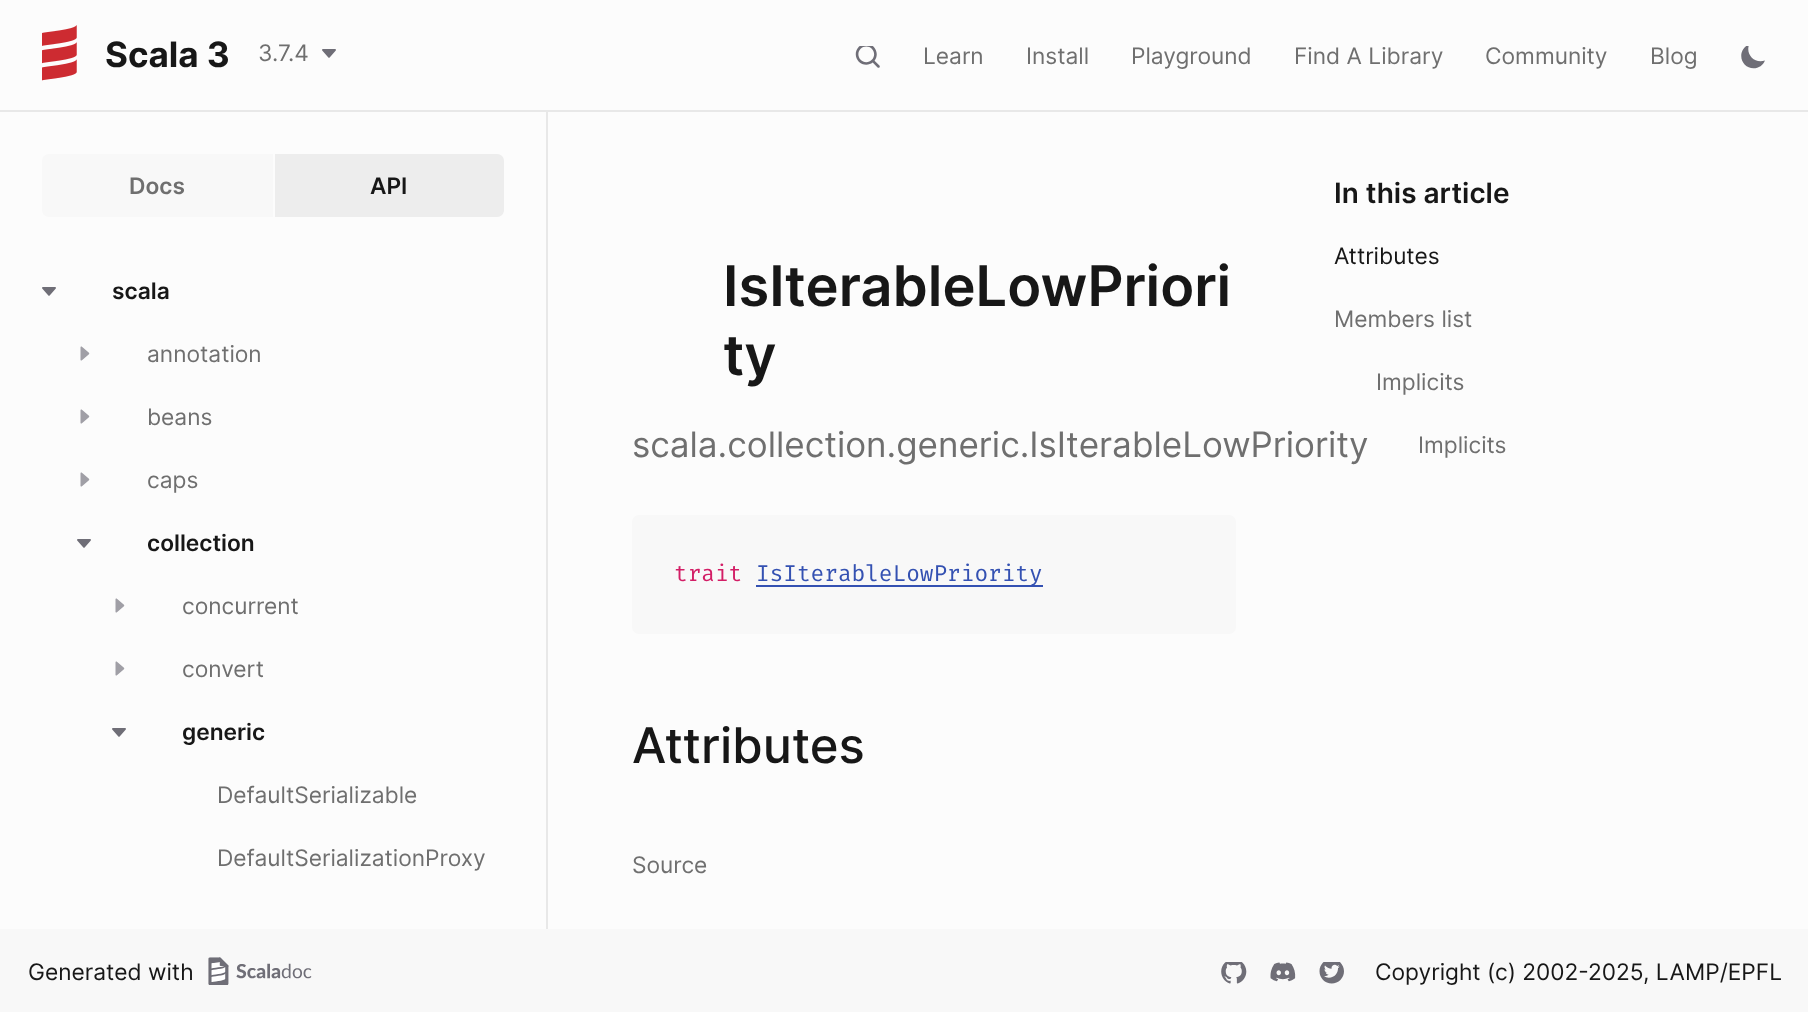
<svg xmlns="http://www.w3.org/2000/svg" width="1808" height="1012">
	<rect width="100%" height="100%" fill="#FCFCFC" />
	<rect x="0" y="110" width="1808" height="2" fill="#E8E8E8" />
	<image x="42" y="25" width="35" height="56" href="assets/img1.png" />
	<text x="105" y="67" font-family="Inter" font-size="35" font-weight="700" fill="#171717">Scala 3</text>
	<text x="258" y="61" font-family="Inter" font-size="22.75" fill="#6F6F6F">3.7.4</text>
	<image x="322" y="49" width="14" height="9" href="assets/img2.png" />
	<image x="855" y="46" width="25" height="22" href="assets/img3.png" />
	<g font-family="Inter" font-size="22.75" fill="#6F6F6F">
		<text x="923" y="64">Learn</text>
		<text x="1026" y="64">Install</text>
		<text x="1131" y="64">Playground</text>
		<text x="1294" y="64">Find A Library</text>
		<text x="1485" y="64">Community</text>
		<text x="1650" y="64">Blog</text>
	</g>
	<image x="1741" y="46" width="24" height="23" href="assets/img4.png" />
	<rect x="546" y="112" width="2" height="819" fill="#E8E8E8" />
	<path d="M49 154H273V217H49C45 217 42 214 42 210V161C42 157 45 154 49 154Z" fill="#F8F8F8" />
	<text x="129" y="194" font-family="Inter" font-size="22.75" font-weight="600" fill="#6F6F6F">Docs</text>
	<path d="M275 154H497C501 154 504 157 504 161V210C504 214 501 217 497 217H275Z" fill="#EDEDED" />
	<text x="370" y="194" font-family="Inter" font-size="22.75" font-weight="600" fill="#171717">API</text>
	<image x="42" y="287" width="14" height="9" href="assets/img2.png" />
	<text x="112" y="299" font-family="Inter" font-size="22.75" font-weight="600" fill="#171717">scala</text>
	<image x="80" y="346" width="10" height="15" href="assets/img5.png" />
	<text x="147" y="362" font-family="Inter" font-size="22.75" fill="#6F6F6F">annotation</text>
	<image x="80" y="409" width="10" height="15" href="assets/img5.png" />
	<text x="147" y="425" font-family="Inter" font-size="22.75" fill="#6F6F6F">beans</text>
	<image x="80" y="472" width="10" height="15" href="assets/img5.png" />
	<text x="147" y="488" font-family="Inter" font-size="22.75" fill="#6F6F6F">caps</text>
	<image x="77" y="539" width="14" height="9" href="assets/img2.png" />
	<text x="147" y="551" font-family="Inter" font-size="22.75" font-weight="600" fill="#171717">collection</text>
	<image x="115" y="598" width="10" height="15" href="assets/img5.png" />
	<text x="182" y="614" font-family="Inter" font-size="22.75" fill="#6F6F6F">concurrent</text>
	<image x="115" y="661" width="10" height="15" href="assets/img5.png" />
	<text x="182" y="677" font-family="Inter" font-size="22.75" fill="#6F6F6F">convert</text>
	<image x="112" y="728" width="14" height="9" href="assets/img2.png" />
	<text x="182" y="740" font-family="Inter" font-size="22.75" font-weight="600" fill="#171717">generic</text>
	<g font-family="Inter" font-size="22.75" fill="#6F6F6F">
		<text x="217" y="803">DefaultSerializable</text>
		<text x="217" y="866">DefaultSerializationProxy</text>
	</g>
	<g font-family="Inter" font-size="56" font-weight="600" fill="#171717">
		<text x="723" y="306">IsIterableLowPriori</text>
		<text x="723" y="375">ty</text>
	</g>
	<text x="632" y="457" font-family="Inter" font-size="35" fill="#6F6F6F">scala.collection.generic.IsIterableLowPriority</text>
	<rect x="632" y="515" width="604" height="119" rx="7" fill="#F8F8F8" />
	<text x="674" y="581" font-family="Fira Code" font-size="22.75" fill="#D31E66">trait</text>
	<rect x="756" y="585" width="287" height="2" fill="#3451B2" />
	<text x="756" y="581" font-family="Fira Code" font-size="22.75" fill="#3451B2">IsIterableLowPriority</text>
	<text x="632" y="763" font-family="Inter" font-size="49" font-weight="500" fill="#171717">Attributes</text>
	<text x="632" y="873" font-family="Inter" font-size="22.75" fill="#6F6F6F">Source</text>
	<text x="1334" y="203" font-family="Inter" font-size="28" font-weight="600" fill="#171717">In this article</text>
	<text x="1334" y="264" font-family="Inter" font-size="22.75" fill="#171717">Attributes</text>
	<g font-family="Inter" font-size="22.75" fill="#6F6F6F">
		<text x="1334" y="327">Members list</text>
		<text x="1376" y="390">Implicits</text>
		<text x="1418" y="453">Implicits</text>
	</g>
	<rect x="0" y="929" width="1808" height="83" fill="#F8F8F8" />
	<text x="28" y="980" font-family="Inter" font-size="22.75" fill="#171717">Generated with</text>
	<image x="208" y="957" width="104" height="28" href="assets/img6.png" />
	<image x="1221" y="962" width="26" height="22" href="assets/img7.png" />
	<image x="1270" y="962" width="26" height="20" href="assets/img8.png" />
	<image x="1319" y="962" width="25" height="22" href="assets/img9.png" />
	<text x="1375" y="980" font-family="Inter" font-size="22.75" fill="#171717">Copyright (c) 2002-2025, LAMP/EPFL</text>
</svg>
